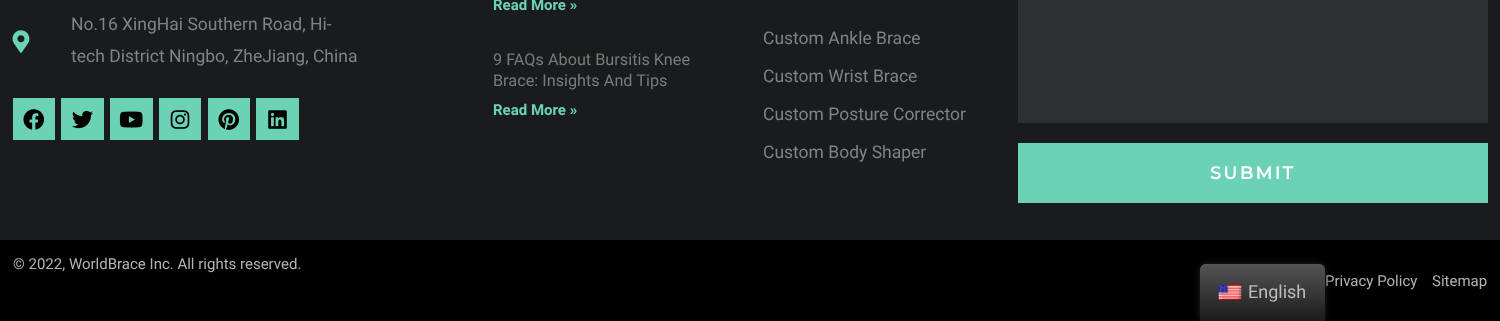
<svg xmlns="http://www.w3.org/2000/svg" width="1500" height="321">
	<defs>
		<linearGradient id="g1" gradientUnits="userSpaceOnUse" x1="1263" y1="321" x2="1263" y2="264"><stop offset="0" stop-color="#1B1B1B" /><stop offset="1" stop-color="#545454" /></linearGradient>
	</defs>
	<rect width="100%" height="100%" fill="#191B1D" />
	<image x="12" y="30" width="18" height="23" href="assets/img1.png" />
	<g font-family="Roboto" font-size="17.5" fill="#818283">
		<text x="71" y="30">No.16 XingHai Southern Road, Hi-</text>
		<text x="71" y="62">tech District Ningbo, ZheJiang, China</text>
	</g>
	<rect x="13" y="98" width="42" height="42" fill="#6BD2B6" />
	<image x="23" y="109" width="21" height="21" href="assets/img2.png" />
	<rect x="61" y="98" width="43" height="42" fill="#6BD2B6" />
	<image x="72" y="110" width="21" height="19" href="assets/img3.png" />
	<rect x="110" y="98" width="43" height="42" fill="#6BD2B6" />
	<image x="119" y="111" width="24" height="17" href="assets/img4.png" />
	<rect x="159" y="98" width="42" height="42" fill="#6BD2B6" />
	<image x="170" y="110" width="20" height="19" href="assets/img5.png" />
	<rect x="208" y="98" width="42" height="42" fill="#6BD2B6" />
	<image x="218" y="109" width="22" height="21" href="assets/img6.png" />
	<rect x="256" y="98" width="43" height="42" fill="#6BD2B6" />
	<image x="268" y="110" width="19" height="19" href="assets/img7.png" />
	<text x="493" y="10" font-family="Roboto" font-size="15" font-weight="700" fill="#6BD2B6">Read More »</text>
	<g font-family="Roboto" font-size="16.25" fill="#7A7A7A">
		<text x="493" y="65">9 FAQs About Bursitis Knee</text>
		<text x="493" y="86">Brace: Insights And Tips</text>
	</g>
	<text x="493" y="115" font-family="Roboto" font-size="15" font-weight="700" fill="#6BD2B6">Read More »</text>
	<g font-family="Roboto" font-size="17.5" fill="#818283">
		<text x="763" y="44">Custom Ankle Brace</text>
		<text x="763" y="82">Custom Wrist Brace</text>
		<text x="763" y="120">Custom Posture Corrector</text>
		<text x="763" y="158">Custom Body Shaper</text>
	</g>
	<rect x="1018" y="0" width="470" height="123" fill="#2E3031" />
	<rect x="1018" y="143" width="470" height="60" fill="#6BD2B6" />
	<text x="1210" y="179" font-family="Montserrat" font-size="17.5" font-weight="700" letter-spacing="2.5" fill="#FFFFFF">SUBMIT</text>
	<rect x="0" y="240" width="1500" height="81" fill="#000000" />
	<g font-family="Roboto" font-size="15" fill="#B3B3B3">
		<text x="13" y="269">© 2022, WorldBrace Inc. All rights reserved.</text>
		<text x="1325" y="286">Privacy Policy</text>
		<text x="1432" y="286">Sitemap</text>
	</g>
	<rect x="1200" y="264" width="125" height="57" rx="6" fill="#212121" filter="blur(3px)" />
	<path d="M1206 264H1319C1322.5 264 1325 266.5 1325 270V321H1200V270C1200 266.5 1202.5 264 1206 264Z" fill="url(#g1)" />
	<image x="1218" y="285" width="24" height="16" href="assets/img8.png" />
	<text x="1248" y="298" font-family="Roboto" font-size="18" fill="#BDBDBD">English</text>
</svg>
